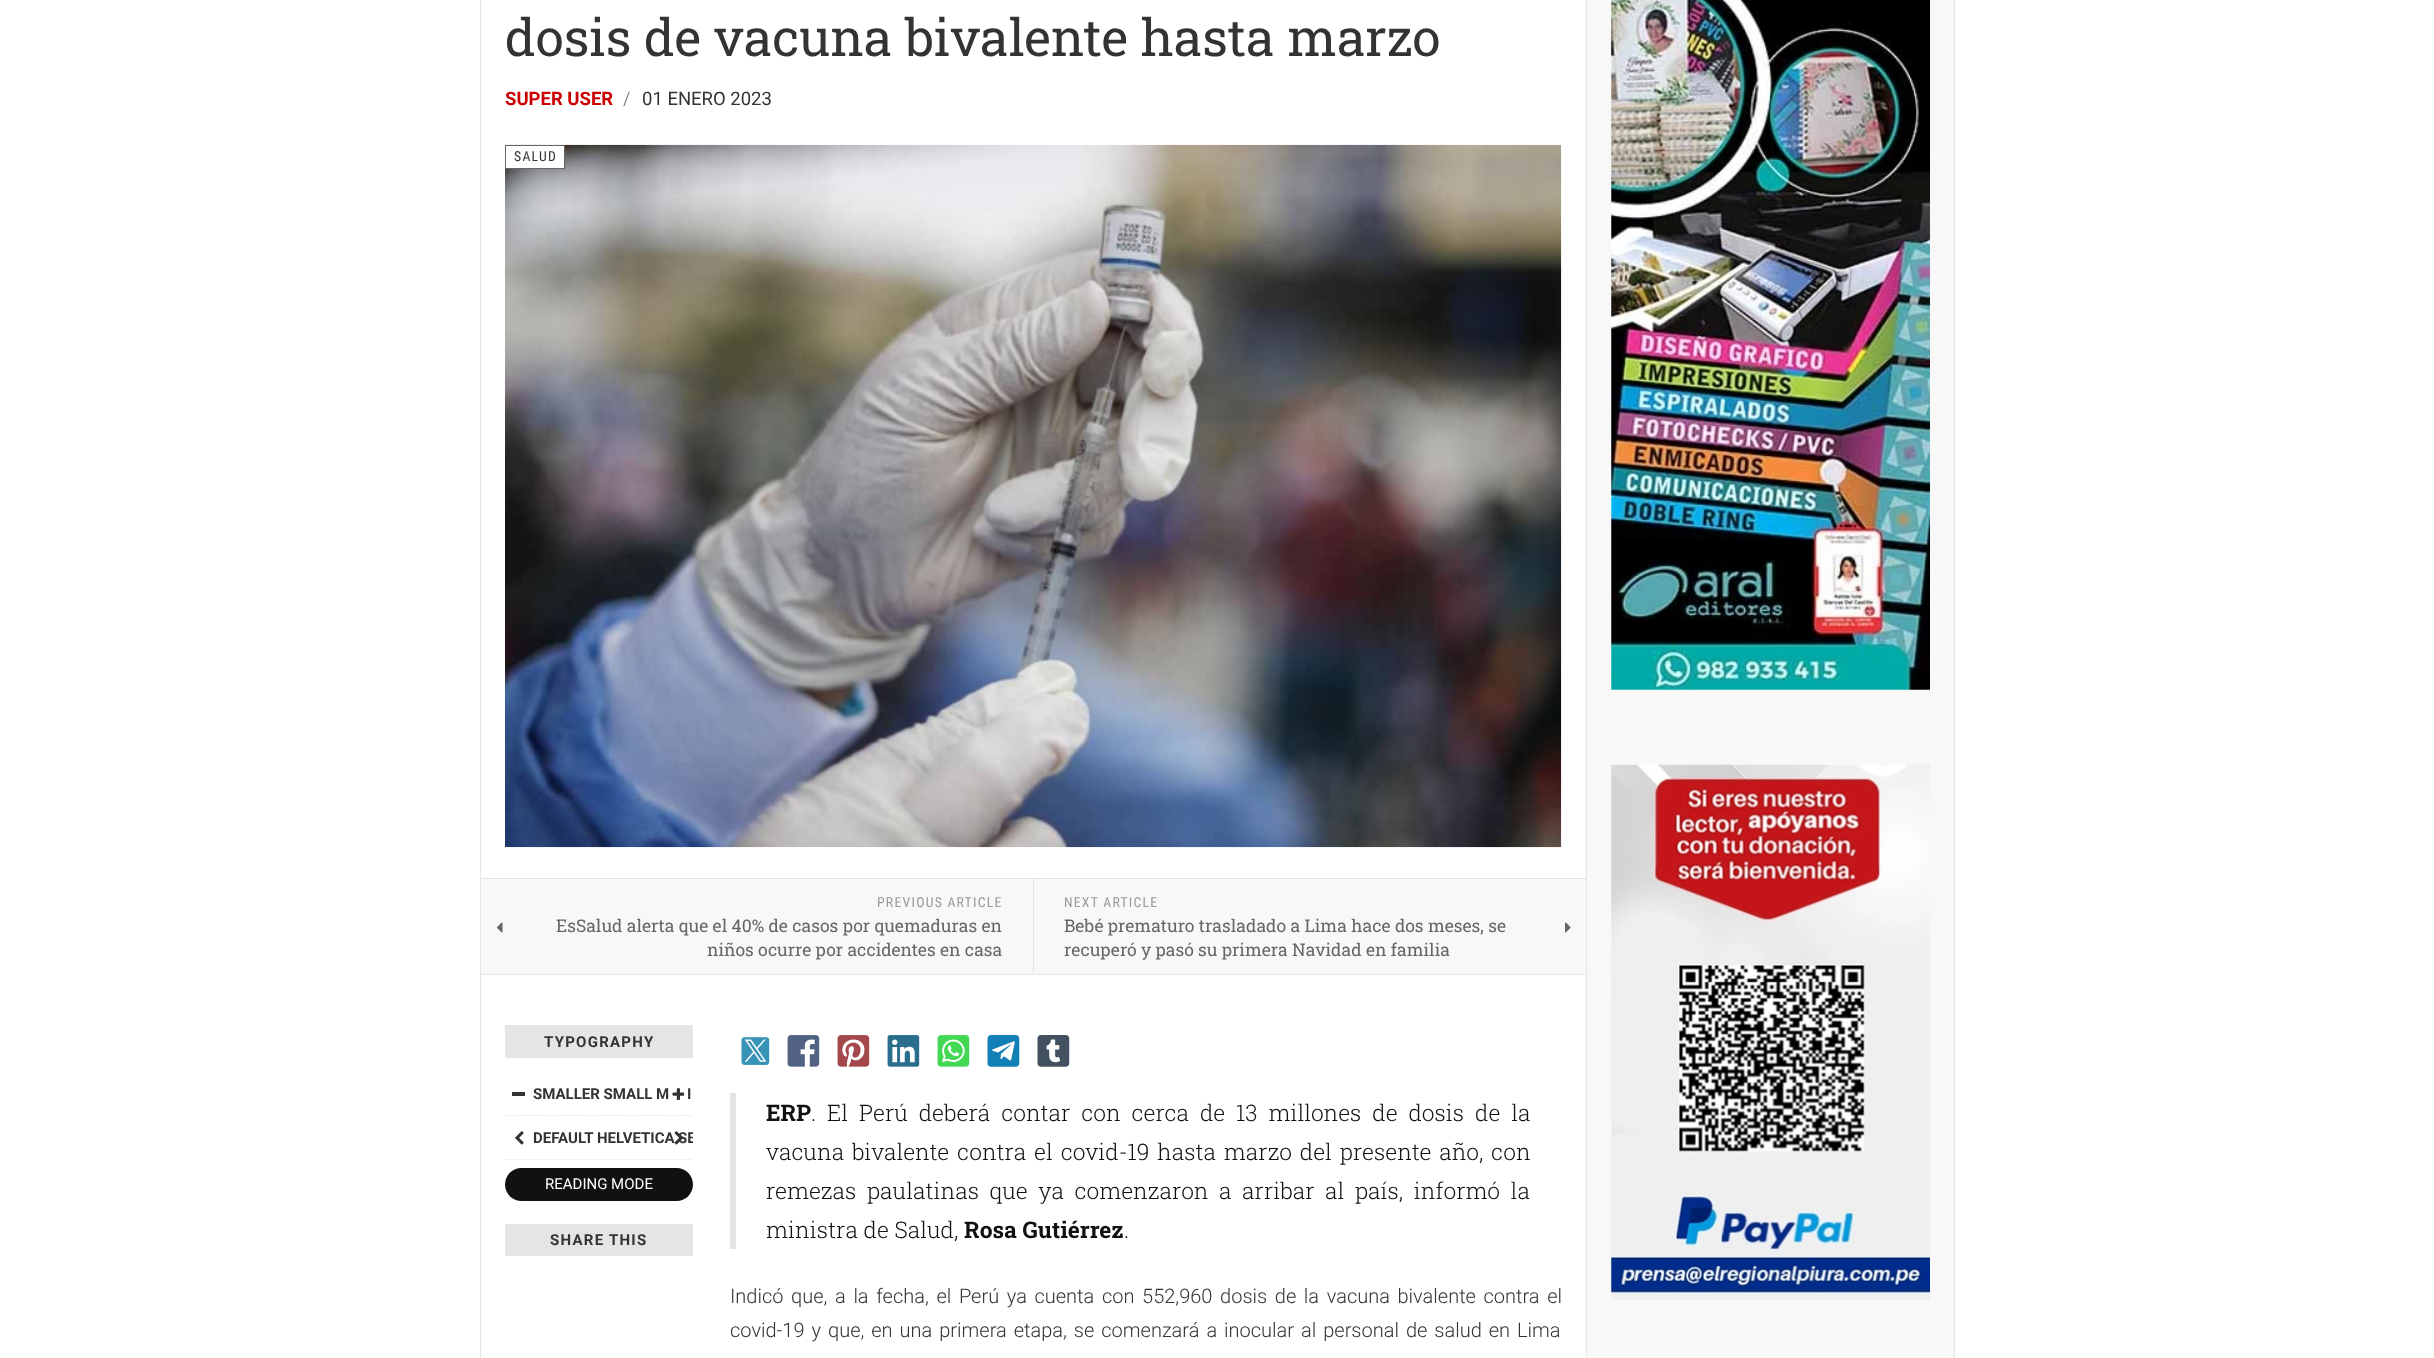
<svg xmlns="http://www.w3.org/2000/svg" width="2434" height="1358">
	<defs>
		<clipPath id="clip1"><rect x="505" y="1116" width="188" height="43" /></clipPath>
	</defs>
	<rect width="100%" height="100%" fill="#FFFFFF" />
	<rect x="480.5" y="-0.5" width="1474" height="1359" fill="none" stroke="#E5E5E5" />
	<text x="505" y="56" font-family="Roboto Slab" font-size="51.4" fill="#333333">dosis de vacuna bivalente hasta marzo</text>
	<text x="505" y="105" font-family="Roboto" font-size="18.5" font-weight="700" fill="#CC0000">SUPER USER</text>
	<text x="623" y="105" font-family="Roboto" font-size="18.5" font-weight="300" fill="#666666">/</text>
	<text x="642" y="105" font-family="Roboto" font-size="18.5" fill="#333333">01 ENERO 2023</text>
	<image x="505" y="144" width="1057" height="704" href="assets/img1.png" />
	<rect x="505.5" y="145.5" width="59" height="23" fill="#FFFFFF" stroke="#666666" />
	<text x="514" y="161" font-family="Roboto Condensed" font-size="13.75" letter-spacing="1.25" fill="#333333">SALUD</text>
	<rect x="480" y="878" width="1106" height="1" fill="#E5E5E5" />
	<rect x="480" y="974" width="1106" height="1" fill="#E5E5E5" />
	<rect x="1033" y="879" width="1" height="95" fill="#E5E5E5" />
	<rect x="481" y="879" width="552" height="95" fill="#F8F8F8" />
	<text x="877" y="907" font-family="Roboto Condensed" font-size="13.75" letter-spacing="1.25" fill="#999999">PREVIOUS ARTICLE</text>
	<image x="496" y="922" width="7" height="11" href="assets/img2.png" />
	<g font-family="Roboto Slab" font-size="17.5" fill="#666666">
		<text x="556" y="932">EsSalud alerta que el 40% de casos por quemaduras en</text>
		<text x="707" y="956">niños ocurre por accidentes en casa</text>
	</g>
	<rect x="1034" y="879" width="552" height="95" fill="#F8F8F8" />
	<text x="1064" y="907" font-family="Roboto Condensed" font-size="13.75" letter-spacing="1.25" fill="#999999">NEXT ARTICLE</text>
	<text x="1064" y="932" font-family="Roboto Slab" font-size="17.5" fill="#666666">Bebé prematuro trasladado a Lima hace dos meses, se</text>
	<image x="1565" y="922" width="6" height="11" href="assets/img3.png" />
	<text x="1064" y="956" font-family="Roboto Slab" font-size="17.5" fill="#666666">recuperó y pasó su primera Navidad en familia</text>
	<rect x="505" y="1025" width="188" height="33" fill="#E5E5E5" />
	<text x="544" y="1047" font-family="Roboto" font-size="15" font-weight="700" letter-spacing="1.25" fill="#333333">TYPOGRAPHY</text>
	<path d="M505 1115.5H692.5" fill="none" stroke="#E5E5E5" stroke-width="1.2" stroke-dasharray="1.25 1.25" />
	<g font-family="Roboto" font-size="15" font-weight="700" fill="#333333">
		<text x="533" y="1099">SMALLER SMALL M</text>
		<text x="687" y="1099">I</text>
	</g>
	<rect x="512" y="1092" width="13" height="4" fill="#333333" />
	<image x="672" y="1088" width="12" height="12" href="assets/img4.png" />
	<path d="M505 1159.5H692.5" fill="none" stroke="#E5E5E5" stroke-width="1.2" stroke-dasharray="1.25 1.25" />
	<image x="515" y="1131" width="9" height="14" href="assets/img5.png" />
	<text x="533" y="1143" font-family="Roboto" font-size="15" font-weight="700" fill="#333333">DEFAULT HELVETICA</text>
	<g clip-path="url(#clip1)">
		<text x="678" y="1143" font-family="Roboto" font-size="15" font-weight="700" fill="#333333">SE</text>
	</g>
	<image x="674" y="1131" width="9" height="14" href="assets/img6.png" />
	<rect x="505" y="1168" width="188" height="33" rx="16.5" fill="#111111" />
	<text x="545" y="1189" font-family="Roboto" font-size="15" fill="#FFFFFF">READING MODE</text>
	<rect x="505" y="1224" width="188" height="32" fill="#E5E5E5" />
	<text x="550" y="1245" font-family="Roboto" font-size="15" font-weight="700" letter-spacing="1.25" fill="#333333">SHARE THIS</text>
	<image x="741" y="1037" width="29" height="28" href="assets/img7.png" />
	<image x="787" y="1035" width="33" height="32" href="assets/img8.png" />
	<image x="837" y="1035" width="33" height="32" href="assets/img9.png" />
	<image x="887" y="1035" width="33" height="32" href="assets/img10.png" />
	<image x="937" y="1035" width="33" height="32" href="assets/img11.png" />
	<image x="987" y="1035" width="33" height="32" href="assets/img12.png" />
	<image x="1037" y="1035" width="33" height="32" href="assets/img13.png" />
	<rect x="730" y="1093" width="6" height="156" fill="#E5E5E5" />
	<text x="766" y="1121" font-family="Roboto Slab" font-size="22.8" font-weight="700" fill="#111111">ERP</text>
	<g font-family="Roboto Slab" font-size="22.8" font-weight="300" fill="#111111">
		<text x="811" y="1121" word-spacing="5.25">. El Perú deberá contar con cerca de 13 millones de dosis de la</text>
		<text x="766" y="1160" word-spacing="2.25">vacuna bivalente contra el covid-19 hasta marzo del presente año, con</text>
		<text x="766" y="1199" word-spacing="5">remezas paulatinas que ya comenzaron a arribar al país, informó la</text>
		<text x="766" y="1238">ministra de Salud,</text>
	</g>
	<text x="964" y="1238" font-family="Roboto Slab" font-size="22.8" font-weight="700" fill="#111111">Rosa Gutiérrez</text>
	<text x="1124" y="1238" font-family="Roboto Slab" font-size="22.8" font-weight="300" fill="#111111">.</text>
	<g font-family="Roboto" font-size="20" font-weight="300" fill="#333333">
		<text x="730" y="1303" word-spacing="2.75">Indicó que, a la fecha, el Perú ya cuenta con 552,960 dosis de la vacuna bivalente contra el</text>
		<text x="730" y="1337" word-spacing="2.1">covid-19 y que, en una primera etapa, se comenzará a inocular al personal de salud en Lima</text>
	</g>
	<rect x="1586.5" y="-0.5" width="368" height="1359" fill="#F8F8F8" stroke="#E5E5E5" />
	<image x="1611" y="0" width="319" height="690" href="assets/img14.png" />
	<image x="1611" y="764" width="319" height="536" href="assets/img15.png" />
</svg>
